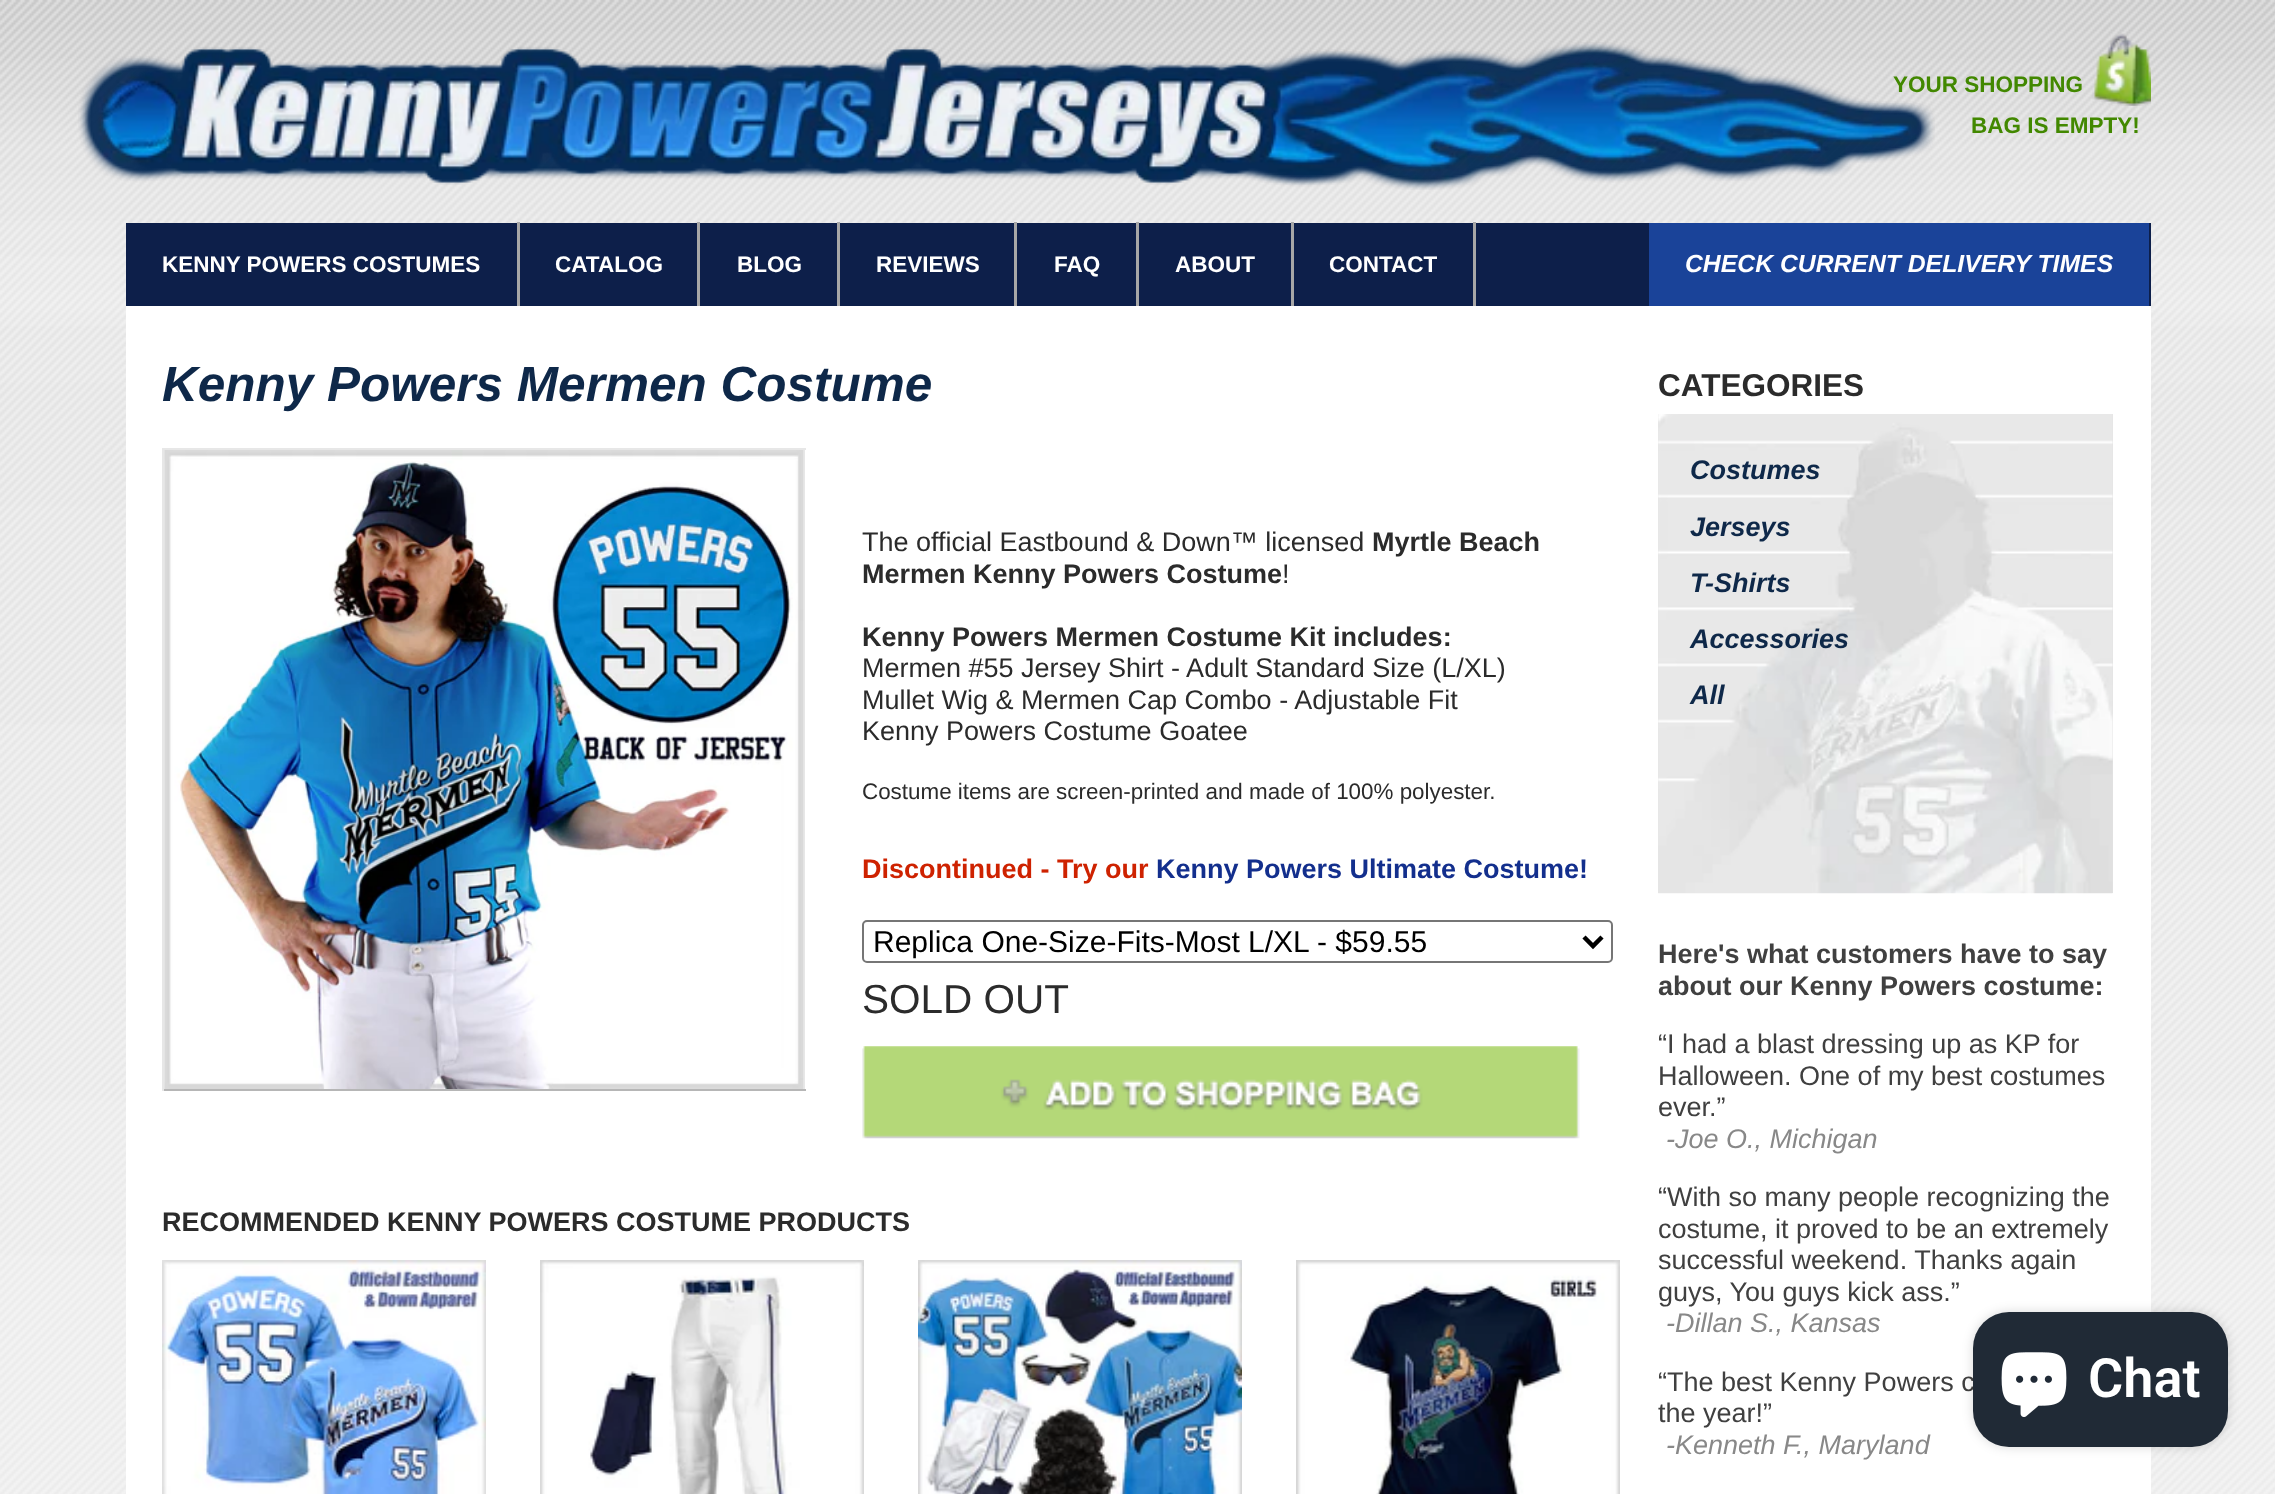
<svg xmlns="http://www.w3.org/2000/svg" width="2275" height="1494">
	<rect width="100%" height="100%" fill="#FFFFFF" />
	<image x="0" y="0" width="2275" height="1494" href="assets/img1.png" />
	<image x="78" y="42" width="1857" height="148" href="assets/img2.png" />
	<image x="2092" y="33" width="59" height="73" href="assets/img3.png" />
	<g font-family="Liberation Sans" font-size="22.5" font-weight="700" fill="#428800">
		<text x="1893" y="92">YOUR SHOPPING</text>
		<text x="1971" y="133">BAG IS EMPTY!</text>
	</g>
	<rect x="126" y="223" width="2025" height="83" fill="#0D1F4A" />
	<rect x="517" y="222" width="3" height="84" fill="#A7A7A7" />
	<text x="162" y="272" font-family="Liberation Sans" font-size="22.5" font-weight="700" fill="#FFFFFF">KENNY POWERS COSTUMES</text>
	<rect x="697" y="222" width="3" height="84" fill="#A7A7A7" />
	<text x="555" y="272" font-family="Liberation Sans" font-size="22.5" font-weight="700" fill="#FFFFFF">CATALOG</text>
	<rect x="837" y="222" width="3" height="84" fill="#A7A7A7" />
	<text x="737" y="272" font-family="Liberation Sans" font-size="22.5" font-weight="700" fill="#FFFFFF">BLOG</text>
	<rect x="1014" y="222" width="3" height="84" fill="#A7A7A7" />
	<text x="876" y="272" font-family="Liberation Sans" font-size="22.5" font-weight="700" fill="#FFFFFF">REVIEWS</text>
	<rect x="1136" y="222" width="3" height="84" fill="#A7A7A7" />
	<text x="1054" y="272" font-family="Liberation Sans" font-size="22.5" font-weight="700" fill="#FFFFFF">FAQ</text>
	<rect x="1291" y="222" width="3" height="84" fill="#A7A7A7" />
	<text x="1175" y="272" font-family="Liberation Sans" font-size="22.5" font-weight="700" fill="#FFFFFF">ABOUT</text>
	<rect x="1473" y="222" width="3" height="84" fill="#A7A7A7" />
	<text x="1329" y="272" font-family="Liberation Sans" font-size="22.5" font-weight="700" fill="#FFFFFF">CONTACT</text>
	<rect x="1649" y="223" width="500" height="83" fill="#1A4399" />
	<text x="1685" y="272" font-family="Liberation Sans" font-size="24.75" font-weight="700" font-style="italic" fill="#FFFFFF">CHECK CURRENT DELIVERY TIMES</text>
	<rect x="126" y="306" width="2025" height="1188" fill="#FFFFFF" />
	<text x="162" y="401" font-family="Liberation Sans" font-size="49.5" font-weight="700" font-style="italic" fill="#0E2849">Kenny Powers Mermen Costume</text>
	<rect x="162" y="448" width="644" height="2" fill="#E7E7E7" />
	<rect x="803" y="448" width="2" height="643" fill="#E7E7E7" />
	<rect x="162" y="1089" width="644" height="2" fill="#B6B6B6" />
	<rect x="162" y="448" width="2" height="643" fill="#E7E7E7" />
	<image x="164" y="450" width="640" height="639" href="assets/img4.png" />
	<text x="862" y="551" font-family="Liberation Sans" font-size="27" fill="#2B2B2B">The official Eastbound &amp; Down™ licensed</text>
	<g font-family="Liberation Sans" font-size="27" font-weight="700" fill="#2B2B2B">
		<text x="1372" y="551">Myrtle Beach</text>
		<text x="862" y="583">Mermen Kenny Powers Costume</text>
	</g>
	<text x="1282" y="583" font-family="Liberation Sans" font-size="27" fill="#2B2B2B">!</text>
	<text x="862" y="646" font-family="Liberation Sans" font-size="27" font-weight="700" fill="#2B2B2B">Kenny Powers Mermen Costume Kit includes:</text>
	<g font-family="Liberation Sans" font-size="27" fill="#2B2B2B">
		<text x="862" y="677">Mermen #55 Jersey Shirt - Adult Standard Size (L/XL)</text>
		<text x="862" y="709">Mullet Wig &amp; Mermen Cap Combo - Adjustable Fit</text>
		<text x="862" y="740">Kenny Powers Costume Goatee</text>
	</g>
	<text x="862" y="799" font-family="Liberation Sans" font-size="22.4" fill="#2B2B2B">Costume items are screen-printed and made of 100% polyester.</text>
	<text x="862" y="878" font-family="Liberation Sans" font-size="27" font-weight="700" fill="#CE2200">Discontinued - Try our</text>
	<text x="1156" y="878" font-family="Liberation Sans" font-size="27" font-weight="700" fill="#132F8D">Kenny Powers Ultimate Costume!</text>
	<rect x="863" y="921" width="749" height="41" rx="4" fill="none" stroke="#767676" stroke-width="2" />
	<path d="M1584 937L1593 946L1602 937" fill="none" stroke="#000000" stroke-width="4.5" />
	<text x="873" y="952" font-family="Liberation Sans" font-size="30" fill="#000000">Replica One-Size-Fits-Most L/XL - $59.55</text>
	<text x="862" y="1013" font-family="Liberation Sans" font-size="40.5" fill="#2B2B2B">SOLD OUT</text>
	<image x="862" y="1046" width="718" height="93" href="assets/img5.png" />
	<text x="162" y="1231" font-family="Liberation Sans" font-size="27" font-weight="700" fill="#2B2B2B">RECOMMENDED KENNY POWERS COSTUME PRODUCTS</text>
	<image x="162" y="1260" width="324" height="234" href="assets/img6.png" />
	<image x="540" y="1260" width="324" height="234" href="assets/img7.png" />
	<image x="918" y="1260" width="324" height="234" href="assets/img8.png" />
	<image x="1296" y="1260" width="324" height="234" href="assets/img9.png" />
	<text x="1658" y="396" font-family="Liberation Sans" font-size="31.5" font-weight="700" fill="#2B2B2B">CATEGORIES</text>
	<rect x="1658" y="414" width="455" height="479" fill="#E4E4E4" />
	<image x="1658" y="414" width="455" height="480" href="assets/img10.png" />
	<g font-family="Liberation Sans" font-size="27" font-weight="700" font-style="italic" fill="#0E2849">
		<text x="1690" y="479">Costumes</text>
		<text x="1690" y="536">Jerseys</text>
		<text x="1690" y="592">T-Shirts</text>
		<text x="1690" y="648">Accessories</text>
		<text x="1690" y="704">All</text>
	</g>
	<g font-family="Liberation Sans" font-size="27" font-weight="700" fill="#404040">
		<text x="1658" y="963">Here's what customers have to say</text>
		<text x="1658" y="995">about our Kenny Powers costume:</text>
	</g>
	<g font-family="Liberation Sans" font-size="27" fill="#404040">
		<text x="1658" y="1053">“I had a blast dressing up as KP for</text>
		<text x="1658" y="1085">Halloween. One of my best costumes</text>
		<text x="1658" y="1116">ever.”</text>
	</g>
	<text x="1666" y="1148" font-family="Liberation Sans" font-size="27" font-style="italic" fill="#888888">-Joe O., Michigan</text>
	<g font-family="Liberation Sans" font-size="27" fill="#404040">
		<text x="1658" y="1206">“With so many people recognizing the</text>
		<text x="1658" y="1238">costume, it proved to be an extremely</text>
		<text x="1658" y="1269">successful weekend. Thanks again</text>
		<text x="1658" y="1301">guys, You guys kick ass.”</text>
	</g>
	<text x="1666" y="1332" font-family="Liberation Sans" font-size="27" font-style="italic" fill="#888888">-Dillan S., Kansas</text>
	<g font-family="Liberation Sans" font-size="27" fill="#404040">
		<text x="1658" y="1391">“The best Kenny Powers c</text>
		<text x="1658" y="1422">the year!”</text>
	</g>
	<text x="1666" y="1454" font-family="Liberation Sans" font-size="27" font-style="italic" fill="#888888">-Kenneth F., Maryland</text>
	<rect x="1973" y="1312" width="255" height="135" rx="36" fill="#000000" fill-opacity="0.15" filter="blur(5.5px)" />
	<rect x="1973" y="1312" width="255" height="135" rx="36" fill="#202A36" />
	<image x="2001" y="1352" width="66" height="65" href="assets/img11.png" />
	<text x="2088" y="1397" font-family="Roboto" font-size="54" font-weight="600" fill="#FFFFFF">Chat</text>
</svg>
